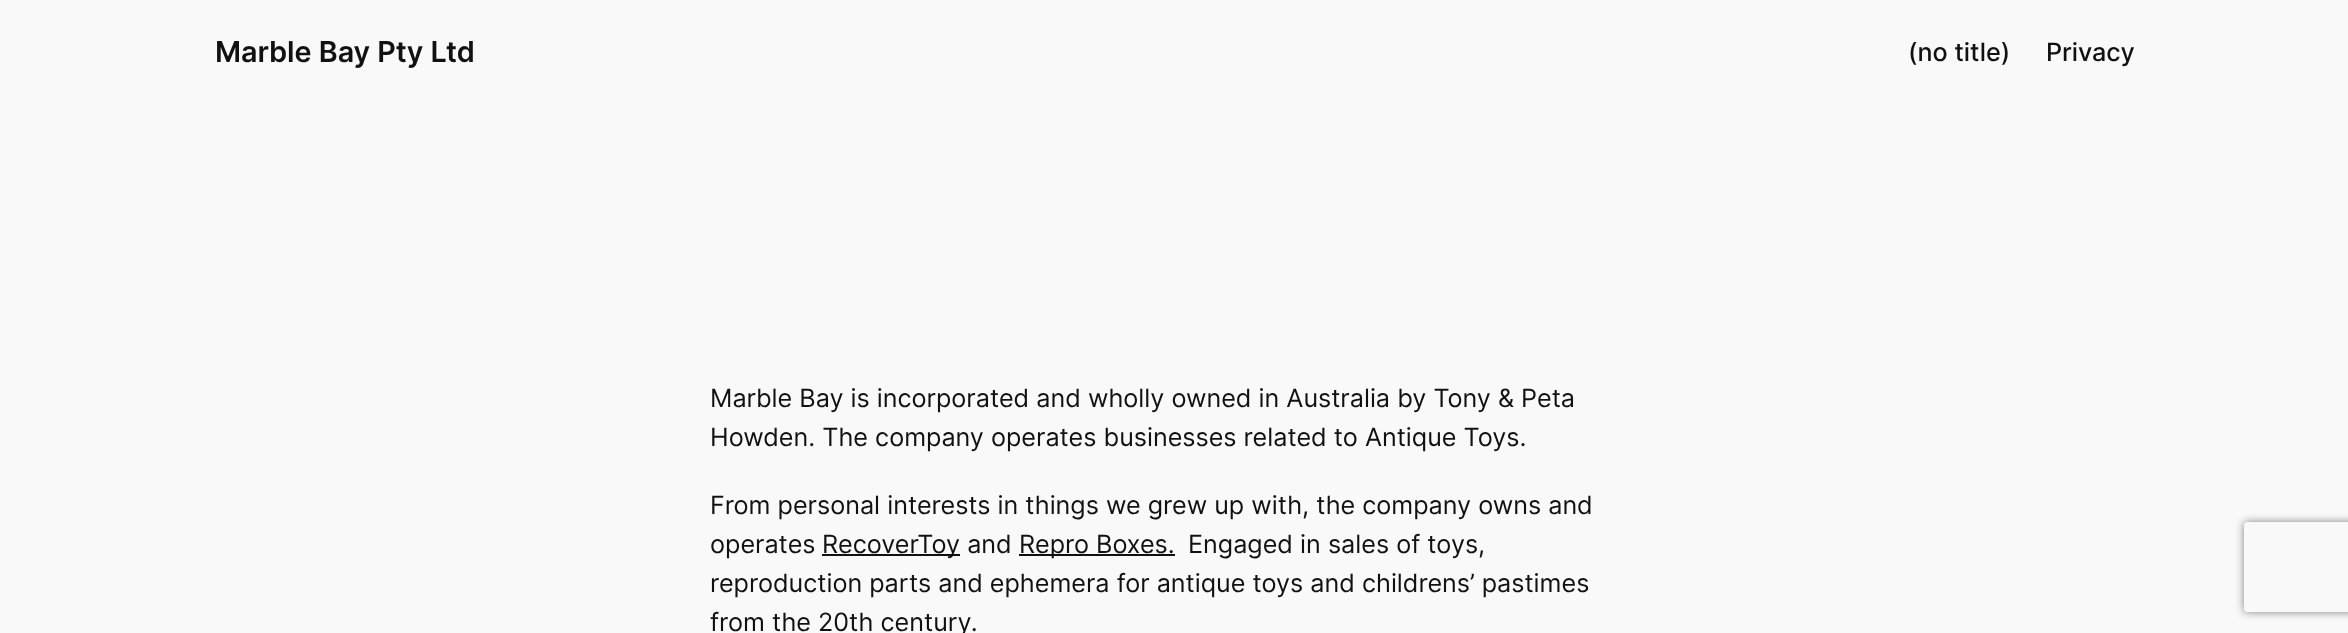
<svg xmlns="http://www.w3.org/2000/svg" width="2348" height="633">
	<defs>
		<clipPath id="clip1"><path d="M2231 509H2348V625H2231ZM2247 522H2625C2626.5 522 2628 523.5 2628 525V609C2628 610.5 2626.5 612 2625 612H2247C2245.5 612 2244 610.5 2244 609V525C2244 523.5 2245.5 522 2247 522Z" clip-rule="evenodd" /></clipPath>
	</defs>
	<rect width="100%" height="100%" fill="#F9F9F9" />
	<text x="215" y="62" font-family="Inter" font-size="28.75" font-weight="600" fill="#111111">Marble Bay Pty Ltd</text>
	<g font-family="Inter" font-size="25.2" font-weight="500" fill="#111111">
		<text x="1908" y="61">(no title)</text>
		<text x="2046" y="61">Privacy</text>
	</g>
	<g font-family="Inter" font-size="25.2" fill="#111111">
		<text x="710" y="407">Marble Bay is incorporated and wholly owned in Australia by Tony &amp; Peta</text>
		<text x="710" y="446">Howden. The company operates businesses related to Antique Toys.</text>
		<text x="710" y="514">From personal interests in things we grew up with, the company owns and</text>
		<text x="710" y="553">operates</text>
	</g>
	<rect x="822" y="554" width="138" height="2" fill="#111111" />
	<text x="822" y="553" font-family="Inter" font-size="25.2" fill="#111111">RecoverToy and</text>
	<rect x="1019" y="554" width="156" height="2" fill="#111111" />
	<g font-family="Inter" font-size="25.2" fill="#111111">
		<text x="1019" y="553">Repro Boxes.</text>
		<text x="1188" y="553">Engaged in sales of toys,</text>
		<text x="710" y="592">reproduction parts and ephemera for antique toys and childrens’ pastimes</text>
		<text x="710" y="631">from the 20th century.</text>
	</g>
	<g clip-path="url(#clip1)">
		<rect x="2244" y="522" width="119" height="90" rx="3" fill="#808080" filter="blur(4px)" />
	</g>
</svg>
